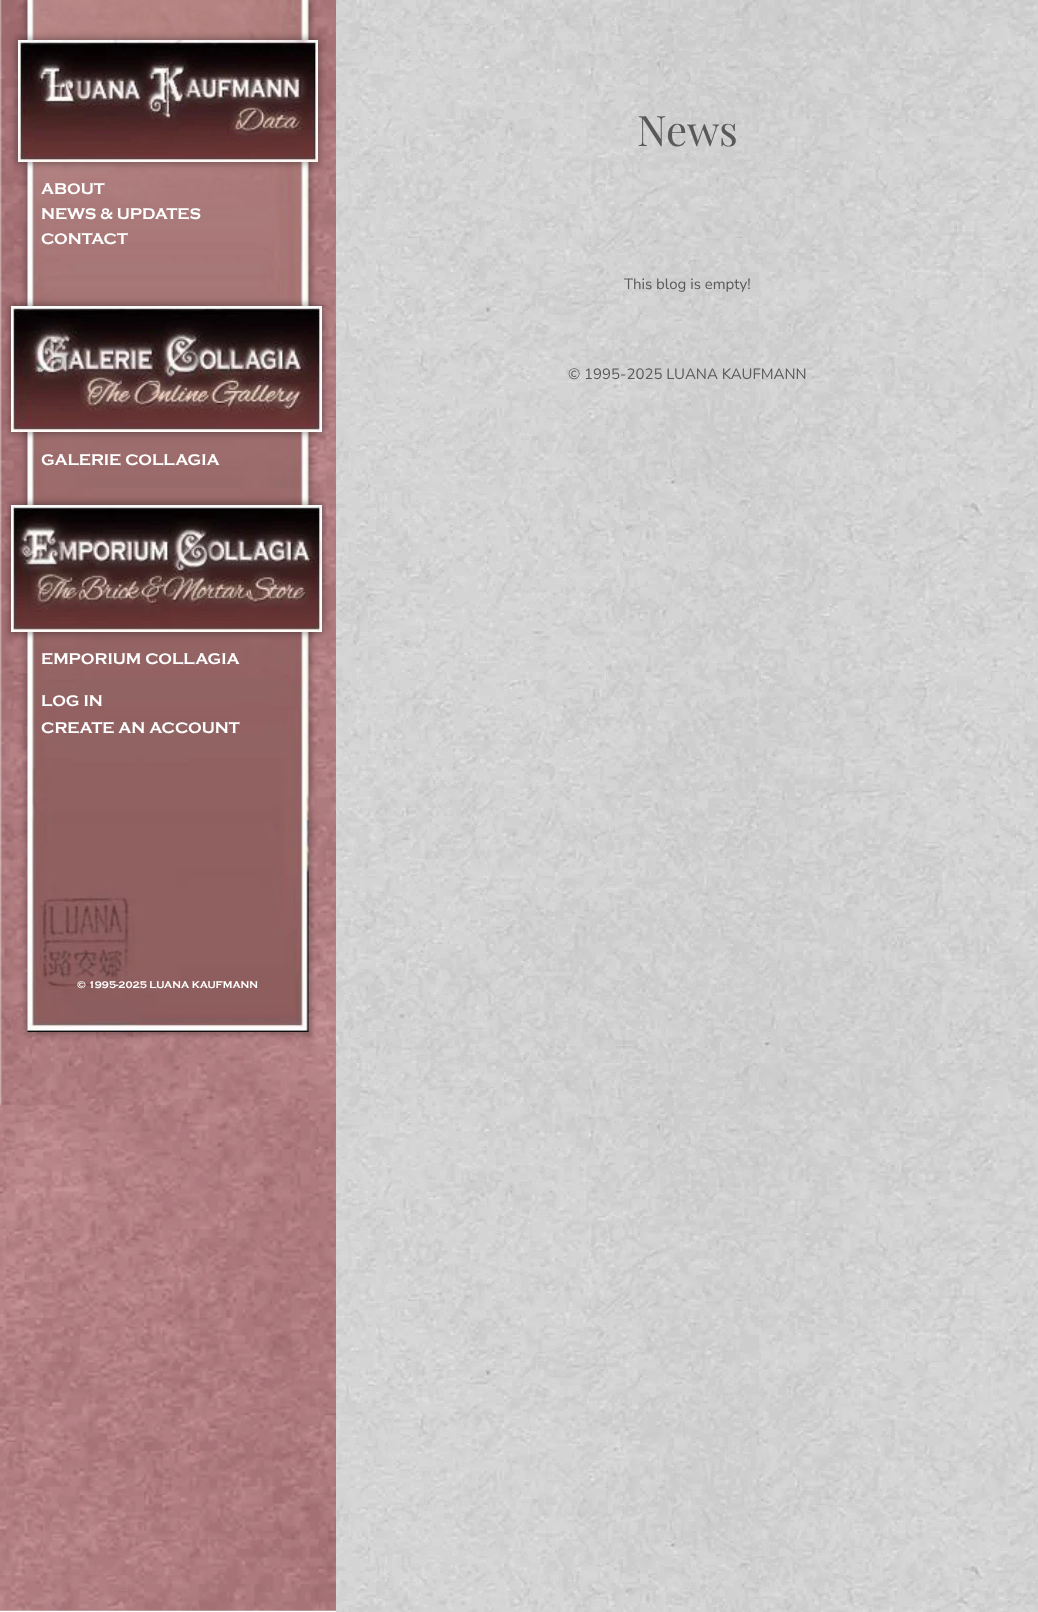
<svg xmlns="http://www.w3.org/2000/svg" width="1038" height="1612">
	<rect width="100%" height="100%" fill="#FFFFFF" />
	<image x="0" y="0" width="336" height="1611" href="assets/img1.png" />
	<rect x="26" y="-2" width="285" height="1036" fill="#000000" fill-opacity="0.3" filter="blur(3px)" />
	<image x="27" y="0" width="282" height="1032" href="assets/img2.png" />
	<rect x="16" y="38" width="304" height="126" fill="#000000" fill-opacity="0.3" filter="blur(3px)" />
	<image x="18" y="40" width="300" height="122" href="assets/img3.png" />
	<g font-family="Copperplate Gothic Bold" font-size="16" font-weight="700" fill="#FFFFFF">
		<text x="41" y="194">ABOUT</text>
		<text x="41" y="219">NEWS &amp; UPDATES</text>
		<text x="41" y="244">CONTACT</text>
	</g>
	<rect x="9" y="304" width="315" height="130" fill="#000000" fill-opacity="0.3" filter="blur(3px)" />
	<image x="11" y="306" width="311" height="126" href="assets/img4.png" />
	<text x="41" y="465" font-family="Copperplate Gothic Bold" font-size="16" font-weight="700" fill="#FFFFFF">GALERIE COLLAGIA</text>
	<rect x="9" y="503" width="315" height="131" fill="#000000" fill-opacity="0.3" filter="blur(3px)" />
	<image x="11" y="505" width="311" height="127" href="assets/img5.png" />
	<g font-family="Copperplate Gothic Bold" font-size="16" font-weight="700" fill="#FFFFFF">
		<text x="41" y="664">EMPORIUM COLLAGIA</text>
		<text x="41" y="706">LOG IN</text>
		<text x="41" y="733">CREATE AN ACCOUNT</text>
	</g>
	<text x="77" y="988" font-family="Copperplate Gothic Bold" font-size="10" font-weight="700" fill="#FFFFFF">© 1995-2025 LUANA KAUFMANN</text>
	<image x="336" y="0" width="702" height="1612" href="assets/img6.png" />
	<text x="637" y="146" font-family="Playfair Display" font-size="42" fill="#59595A">News</text>
	<g font-family="Nunito Sans" font-size="15" fill="#59595A">
		<text x="624" y="289">This blog is empty!</text>
		<text x="568" y="379">© 1995-2025 LUANA KAUFMANN</text>
	</g>
</svg>
